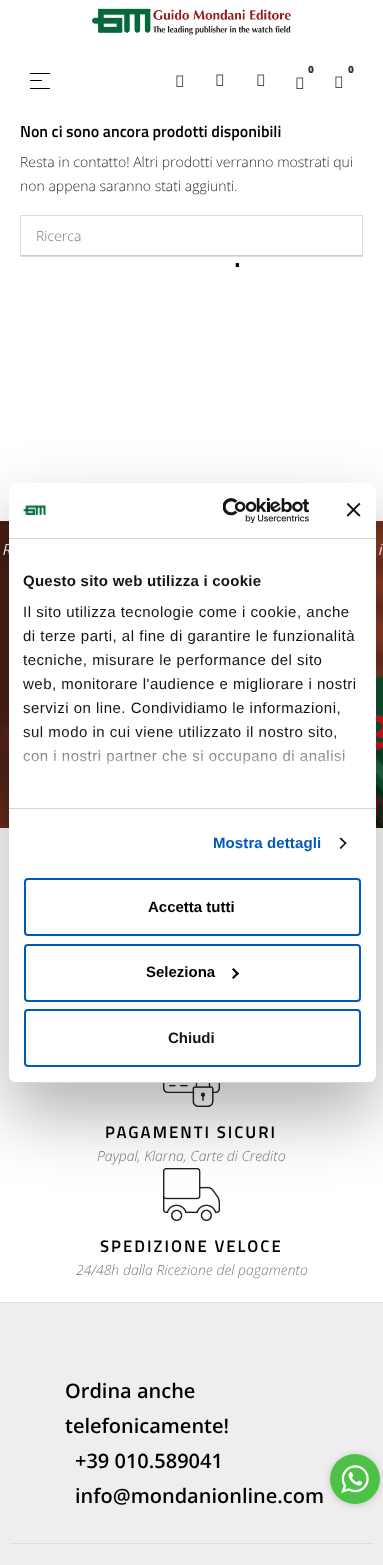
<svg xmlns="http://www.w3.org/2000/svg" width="383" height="1565">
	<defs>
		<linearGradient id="g1" gradientUnits="userSpaceOnUse" x1="186" y1="808" x2="186" y2="733"><stop offset="0" stop-color="#FFFFFF" /><stop offset="0.5" stop-color="#FFFFFF" stop-opacity="0.8" /><stop offset="1" stop-color="#FFFFFF" stop-opacity="0" /></linearGradient>
		<clipPath id="clip1"><rect x="9" y="483" width="367" height="600" rx="8" /></clipPath>
	</defs>
	<rect width="100%" height="100%" fill="#FFFFFF" />
	<image x="92" y="8" width="199" height="27" href="assets/img1.png" />
	<text x="308" y="73" font-family="Open Sans" font-size="10" font-weight="800" fill="#333333">0</text>
	<image x="296" y="77" width="8" height="12" href="assets/img2.png" />
	<text x="348" y="73" font-family="Open Sans" font-size="10" font-weight="800" fill="#333333">0</text>
	<image x="335" y="76" width="8" height="12" href="assets/img2.png" />
	<image x="176" y="75" width="8" height="12" href="assets/img2.png" />
	<image x="216" y="74" width="8" height="12" href="assets/img2.png" />
	<image x="257" y="74" width="8" height="12" href="assets/img2.png" />
	<rect x="30" y="73" width="20" height="1" fill="#000000" />
	<rect x="30" y="88" width="20" height="1" fill="#000000" />
	<rect x="30" y="80" width="12" height="1" fill="#000000" />
	<text x="20" y="137" font-family="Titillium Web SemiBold" font-size="16" font-weight="600" fill="#000000">Non ci sono ancora prodotti disponibili</text>
	<g font-family="Open Sans" font-size="14" font-weight="300" fill="#2D2D2D">
		<text x="20" y="167">Resta in contatto! Altri prodotti verranno mostrati qui</text>
		<text x="20" y="191">non appena saranno stati aggiunti.</text>
	</g>
	<rect x="20.5" y="215.5" width="342" height="41" fill="none" stroke="#DDDDDD" />
	<rect x="21" y="255" width="341" height="1" fill="#CCCCCC" />
	<text x="36" y="241" font-family="Open Sans" font-size="14" font-weight="300" fill="#7A7A7A">Ricerca</text>
	<text x="234" y="267" font-family="Titillium Web SemiBold" font-size="28" font-weight="600" fill="#000000">.</text>
	<image x="0" y="521" width="383" height="307" href="assets/img3.png" />
	<g font-family="Titillium Web" font-size="16" font-style="italic" fill="#FFFFFF">
		<text x="2" y="555">R</text>
		<text x="378" y="555">i</text>
	</g>
	<image x="163" y="1083" width="57" height="24" href="assets/img4.png" />
	<text x="105" y="1138" font-family="Titillium Web SemiBold" font-size="16.75" font-weight="600" letter-spacing="2" fill="#000000">PAGAMENTI SICURI</text>
	<text x="97" y="1161" font-family="Open Sans" font-size="14" font-weight="300" font-style="italic" fill="#7A7A7A">Paypal, Klarna, Carte di Credito</text>
	<image x="163" y="1168" width="57" height="53" href="assets/img5.png" />
	<text x="100" y="1252" font-family="Titillium Web SemiBold" font-size="16.75" font-weight="600" letter-spacing="2" fill="#000000">SPEDIZIONE VELOCE</text>
	<text x="76" y="1275" font-family="Open Sans" font-size="14" font-weight="300" font-style="italic" fill="#7A7A7A">24/48h dalla Ricezione del pagamento</text>
	<rect x="0" y="1303" width="383" height="262" fill="#EEEEEE" />
	<rect x="0" y="1302" width="383" height="1" fill="#DDDDDD" />
	<rect x="10" y="1543" width="363" height="1" fill="#DDDDDD" />
	<g font-family="Open Sans" font-size="20" font-weight="600" fill="#000000">
		<text x="65" y="1398">Ordina anche</text>
		<text x="65" y="1433">telefonicamente!</text>
		<text x="75" y="1468">+39 010.589041</text>
		<text x="75" y="1503">info@mondanionline.com</text>
	</g>
	<rect x="9" y="515" width="367" height="600" rx="8" fill="#000000" fill-opacity="0.3" filter="blur(34px)" />
	<rect x="9" y="483" width="367" height="600" rx="8" fill="#FFFFFF" />
	<rect x="9" y="538" width="367" height="1" fill="#D6D6D6" />
	<image x="23" y="505" width="23" height="11" href="assets/img6.png" />
	<image x="223" y="498" width="87" height="25" href="assets/img7.png" />
	<image x="347" y="503" width="14" height="14" href="assets/img8.png" />
	<rect x="9" y="808" width="367" height="1" fill="#D6D6D6" />
	<text x="23" y="586" font-family="Liberation Sans" font-size="15" font-weight="700" letter-spacing="0.25" fill="#141414">Questo sito web utilizza i cookie</text>
	<g font-family="Liberation Sans" font-size="15" letter-spacing="0.5" fill="#141414">
		<text x="23" y="617">Il sito utilizza tecnologie come i cookie, anche</text>
		<text x="23" y="641">di terze parti, al fine di garantire le funzionalità</text>
		<text x="23" y="665">tecniche, misurare le performance del sito</text>
		<text x="23" y="689">web, monitorare l'audience e migliorare i nostri</text>
		<text x="23" y="713">servizi on line. Condividiamo le informazioni,</text>
		<text x="23" y="737">sul modo in cui viene utilizzato il nostro sito,</text>
		<text x="23" y="761">con i nostri partner che si occupano di analisi</text>
	</g>
	<rect x="23" y="734" width="322" height="31" fill="url(#g1)" />
	<text x="213" y="848" font-family="Liberation Sans" font-size="15" font-weight="700" letter-spacing="0.1" fill="#005ABB">Mostra dettagli</text>
	<path d="M341 837.5L346.5 843L345.5 844.5L339.5 838.5Z" fill="#141414" />
	<path d="M345.5 842L346.5 843L341 849L339.5 848Z" fill="#141414" />
	<g clip-path="url(#clip1)">
		<rect x="9" y="1082" width="367" height="1" fill="#D6D6D6" />
	</g>
	<rect x="25" y="879" width="335" height="56" rx="3" fill="none" stroke="#005ABB" stroke-width="2" />
	<text x="148" y="912" font-family="Liberation Sans" font-size="15" font-weight="700" fill="#000000">Accetta tutti</text>
	<rect x="25" y="945" width="335" height="56" rx="3" fill="none" stroke="#005ABB" stroke-width="2" />
	<text x="146" y="977" font-family="Liberation Sans" font-size="15" font-weight="700" fill="#000000">Seleziona</text>
	<path d="M233.5 968L239 973.5L237.5 975L232 969.5Z" fill="#000000" />
	<path d="M237.5 972L239 973.5L233.5 979L232 977.5Z" fill="#000000" />
	<rect x="25" y="1010" width="335" height="56" rx="3" fill="none" stroke="#005ABB" stroke-width="2" />
	<text x="168" y="1043" font-family="Liberation Sans" font-size="15" font-weight="700" fill="#141414">Chiudi</text>
	<rect x="330" y="1455" width="50" height="50" rx="25" fill="#888888" fill-opacity="0.4" filter="blur(3.5px)" />
	<circle cx="355" cy="1479" r="25" fill="#4DC247" />
	<image x="341" y="1465" width="28" height="28" href="assets/img9.png" />
</svg>
